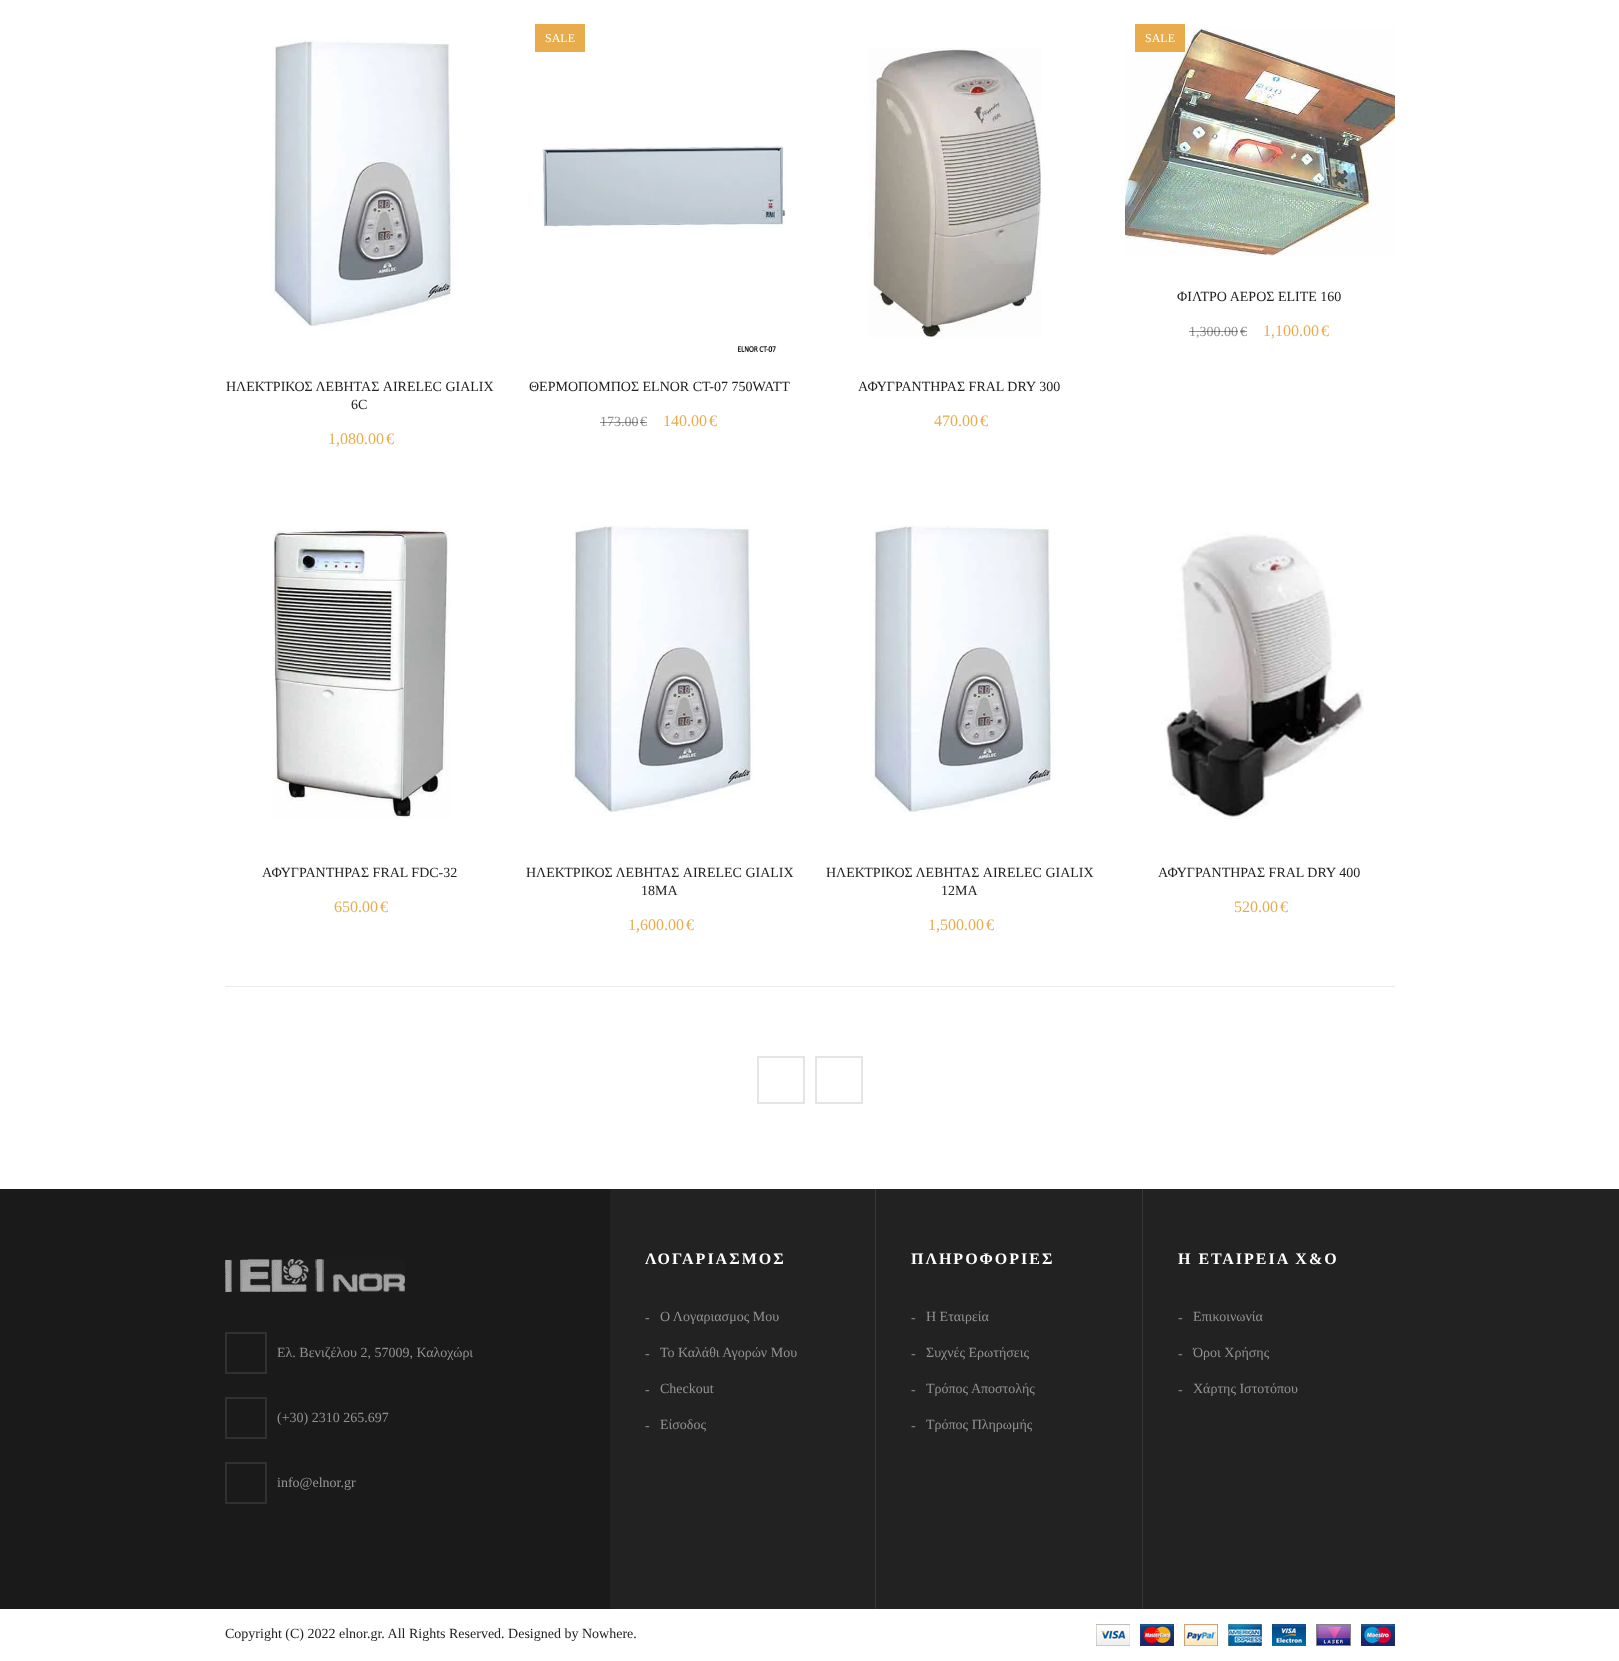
<svg xmlns="http://www.w3.org/2000/svg" width="1619" height="1661">
	<rect width="100%" height="100%" fill="#FFFFFF" />
	<rect x="535" y="24" width="50" height="28" fill="#E9AC4C" />
	<text x="545" y="42" font-family="Liberation Serif" font-size="12" fill="#FFFFFF">SALE</text>
	<image x="541" y="146" width="245" height="208" href="assets/img1.png" />
	<text x="529" y="391" font-family="Liberation Serif" font-size="14" fill="#222222">ΘΕΡΜΟΠΟΜΠΟΣ ELNOR CT-07 750WATT</text>
	<text x="600" y="426" font-family="Liberation Serif" font-size="14" fill="#919191">173.00</text>
	<rect x="600" y="422" width="38" height="1" fill="#222222" fill-opacity="0.5" />
	<text x="640" y="426" font-family="Liberation Serif" font-size="14" fill="#919191">€</text>
	<rect x="640" y="422" width="7" height="1" fill="#222222" fill-opacity="0.5" />
	<g font-family="Liberation Serif" font-size="16" fill="#E9AC4C">
		<text x="663" y="426">140.00</text>
		<text x="709" y="426">€</text>
	</g>
	<image x="1125" y="27" width="270" height="229" href="assets/img2.png" />
	<rect x="1135" y="24" width="50" height="28" fill="#E9AC4C" />
	<text x="1145" y="42" font-family="Liberation Serif" font-size="12" fill="#FFFFFF">SALE</text>
	<text x="1177" y="301" font-family="Liberation Serif" font-size="14" fill="#222222">ΦΙΛΤΡΟ ΑΕΡΟΣ ELITE 160</text>
	<g font-family="Liberation Serif" font-size="14" fill="#919191">
		<text x="1189" y="336">1,300.00</text>
		<text x="1240" y="336">€</text>
	</g>
	<rect x="1189" y="331" width="49" height="1" fill="#222222" fill-opacity="0.5" />
	<rect x="1240" y="331" width="7" height="1" fill="#222222" fill-opacity="0.5" />
	<g font-family="Liberation Serif" font-size="16" fill="#E9AC4C">
		<text x="1263" y="336">1,100.00</text>
		<text x="1321" y="336">€</text>
	</g>
	<image x="270" y="40" width="184" height="287" href="assets/img3.png" />
	<g font-family="Liberation Serif" font-size="14" fill="#222222">
		<text x="226" y="391">ΗΛΕΚΤΡΙΚΟΣ ΛΕΒΗΤΑΣ AIRELEC GIALIX</text>
		<text x="351" y="409">6C</text>
	</g>
	<g font-family="Liberation Serif" font-size="16" fill="#E9AC4C">
		<text x="328" y="444">1,080.00</text>
		<text x="386" y="444">€</text>
	</g>
	<image x="868" y="48" width="173" height="291" href="assets/img4.png" />
	<text x="858" y="391" font-family="Liberation Serif" font-size="14" fill="#222222">ΑΦΥΓΡΑΝΤΗΡΑΣ FRAL DRY 300</text>
	<g font-family="Liberation Serif" font-size="16" fill="#E9AC4C">
		<text x="934" y="426">470.00</text>
		<text x="980" y="426">€</text>
	</g>
	<image x="271" y="527" width="179" height="292" href="assets/img5.png" />
	<text x="262" y="877" font-family="Liberation Serif" font-size="14" fill="#222222">ΑΦΥΓΡΑΝΤΗΡΑΣ FRAL FDC-32</text>
	<g font-family="Liberation Serif" font-size="16" fill="#E9AC4C">
		<text x="334" y="912">650.00</text>
		<text x="380" y="912">€</text>
	</g>
	<image x="570" y="525" width="184" height="288" href="assets/img6.png" />
	<g font-family="Liberation Serif" font-size="14" fill="#222222">
		<text x="526" y="877">ΗΛΕΚΤΡΙΚΟΣ ΛΕΒΗΤΑΣ AIRELEC GIALIX</text>
		<text x="641" y="895">18MA</text>
	</g>
	<g font-family="Liberation Serif" font-size="16" fill="#E9AC4C">
		<text x="628" y="930">1,600.00</text>
		<text x="686" y="930">€</text>
	</g>
	<image x="870" y="525" width="184" height="288" href="assets/img6.png" />
	<g font-family="Liberation Serif" font-size="14" fill="#222222">
		<text x="826" y="877">ΗΛΕΚΤΡΙΚΟΣ ΛΕΒΗΤΑΣ AIRELEC GIALIX</text>
		<text x="941" y="895">12MA</text>
	</g>
	<g font-family="Liberation Serif" font-size="16" fill="#E9AC4C">
		<text x="928" y="930">1,500.00</text>
		<text x="986" y="930">€</text>
	</g>
	<image x="1164" y="532" width="200" height="287" href="assets/img7.png" />
	<text x="1158" y="877" font-family="Liberation Serif" font-size="14" fill="#222222">ΑΦΥΓΡΑΝΤΗΡΑΣ FRAL DRY 400</text>
	<g font-family="Liberation Serif" font-size="16" fill="#E9AC4C">
		<text x="1234" y="912">520.00</text>
		<text x="1280" y="912">€</text>
	</g>
	<rect x="225" y="986" width="1170" height="1" fill="#EBEBEB" />
	<rect x="758" y="1057" width="46" height="46" fill="none" stroke="#E5E5E5" stroke-width="2" />
	<rect x="816" y="1057" width="46" height="46" fill="none" stroke="#E5E5E5" stroke-width="2" />
	<rect x="0" y="1189" width="610" height="420" fill="#1A1A1A" />
	<rect x="610" y="1189" width="1009" height="420" fill="#222222" />
	<image x="225" y="1259" width="180" height="33" href="assets/img8.png" />
	<rect x="226" y="1333" width="40" height="40" fill="none" stroke="#313131" stroke-width="2" />
	<text x="277" y="1357" font-family="Liberation Serif" font-size="14" fill="#919191">Ελ. Βενιζέλου 2, 57009, Καλοχώρι</text>
	<rect x="226" y="1398" width="40" height="40" fill="none" stroke="#313131" stroke-width="2" />
	<text x="277" y="1422" font-family="Liberation Serif" font-size="14" fill="#919191">(+30) 2310 265.697</text>
	<rect x="226" y="1463" width="40" height="40" fill="none" stroke="#313131" stroke-width="2" />
	<text x="277" y="1487" font-family="Liberation Serif" font-size="14" fill="#989898">info@elnor.gr</text>
	<rect x="875" y="1189" width="1" height="420" fill="#383838" />
	<text x="645" y="1264" font-family="Liberation Serif" font-size="16" font-weight="700" letter-spacing="2" fill="#FFFFFF">ΛΟΓΑΡΙΑΣΜΟΣ</text>
	<g font-family="Liberation Serif" font-size="14" fill="#919191">
		<text x="645" y="1322">-</text>
		<text x="660" y="1321">Ο Λογαριασμος Μου</text>
		<text x="645" y="1358">-</text>
		<text x="660" y="1357">Το Καλάθι Αγορών Μου</text>
		<text x="645" y="1394">-</text>
		<text x="660" y="1393">Checkout</text>
		<text x="645" y="1430">-</text>
		<text x="660" y="1429">Είσοδος</text>
	</g>
	<rect x="1142" y="1189" width="1" height="420" fill="#383838" />
	<text x="911" y="1264" font-family="Liberation Serif" font-size="16" font-weight="700" letter-spacing="2" fill="#FFFFFF">ΠΛΗΡΟΦΟΡΙΕΣ</text>
	<g font-family="Liberation Serif" font-size="14" fill="#919191">
		<text x="911" y="1322">-</text>
		<text x="926" y="1321">Η Εταιρεία</text>
		<text x="911" y="1358">-</text>
		<text x="926" y="1357">Συχνές Ερωτήσεις</text>
		<text x="911" y="1394">-</text>
		<text x="926" y="1393">Τρόπος Αποστολής</text>
		<text x="911" y="1430">-</text>
		<text x="926" y="1429">Τρόπος Πληρωμής</text>
	</g>
	<text x="1178" y="1264" font-family="Liberation Serif" font-size="16" font-weight="700" letter-spacing="2" fill="#FFFFFF">Η ΕΤΑΙΡΕΙΑ Χ&amp;Ο</text>
	<g font-family="Liberation Serif" font-size="14" fill="#919191">
		<text x="1178" y="1322">-</text>
		<text x="1193" y="1321">Επικοινωνία</text>
		<text x="1178" y="1358">-</text>
		<text x="1193" y="1357">Όροι Χρήσης</text>
		<text x="1178" y="1394">-</text>
		<text x="1193" y="1393">Χάρτης Ιστοτόπου</text>
	</g>
	<text x="225" y="1638" font-family="Liberation Serif" font-size="14" fill="#222222">Copyright (C) 2022 elnor.gr. All Rights Reserved. Designed by Nowhere.</text>
	<image x="1096" y="1624" width="299" height="22" href="assets/img9.png" />
</svg>
